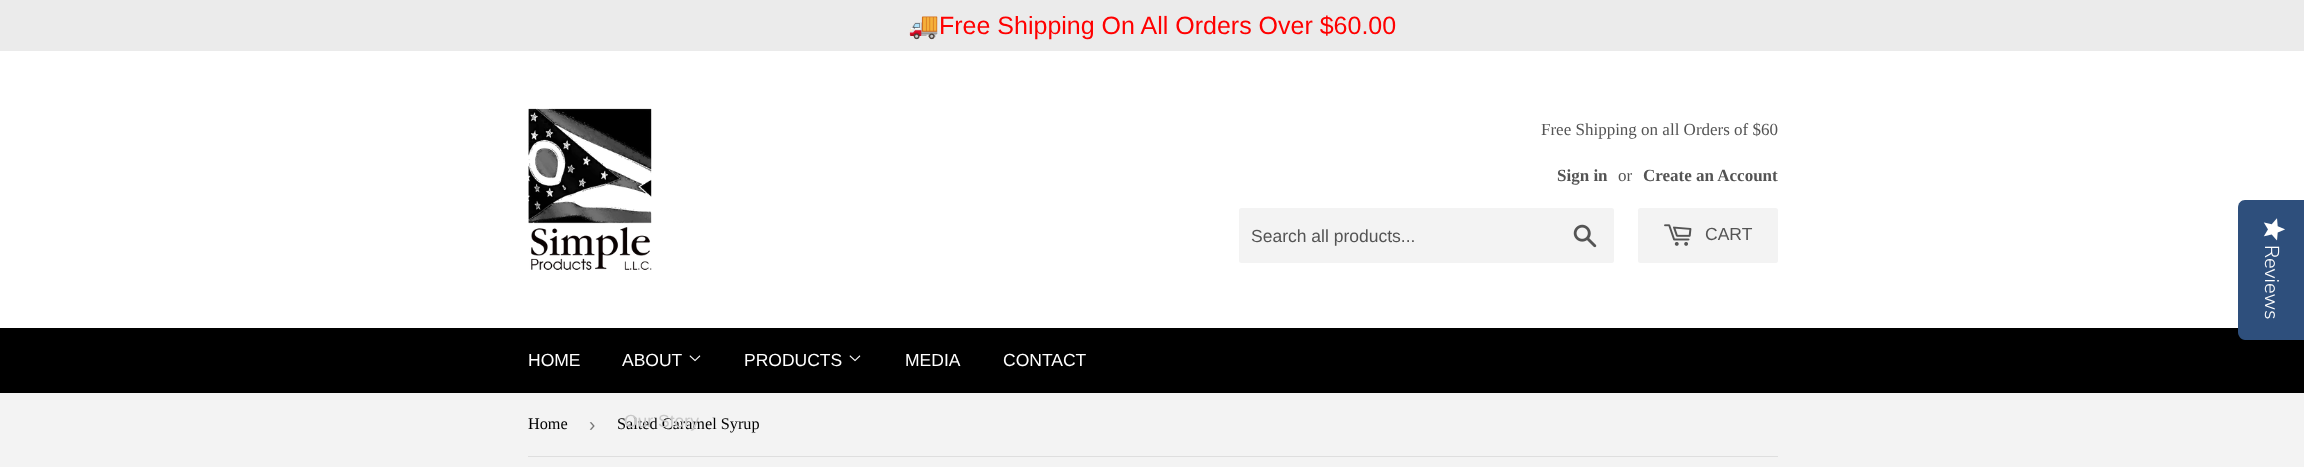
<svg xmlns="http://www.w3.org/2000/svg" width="2304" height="467">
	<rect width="100%" height="100%" fill="#F3F3F3" />
	<rect x="0" y="0" width="2304" height="51" fill="#EBEBEB" />
	<text x="908" y="34" font-family="Noto Color Emoji" font-size="25" fill="#FF0000">🚚</text>
	<text x="939" y="34" font-family="Liberation Sans" font-size="25" fill="#FF0000">Free Shipping On All Orders Over $60.00</text>
	<rect x="0" y="51" width="2304" height="277" fill="#FFFFFF" />
	<image x="528" y="108" width="124" height="162" href="assets/img1.png" />
	<text x="1541" y="135" font-family="Liberation Serif" font-size="17" fill="#545454">Free Shipping on all Orders of $60</text>
	<text x="1557" y="181" font-family="Liberation Serif" font-size="17" font-weight="700" fill="#545454">Sign in</text>
	<text x="1618" y="181" font-family="Liberation Serif" font-size="17" fill="#545454">or</text>
	<text x="1643" y="181" font-family="Liberation Serif" font-size="17" font-weight="700" fill="#545454">Create an Account</text>
	<rect x="1239" y="208" width="375" height="55" rx="2.5" fill="#F3F3F3" />
	<text x="1251" y="242" font-family="Liberation Sans" font-size="17.5" fill="#545454">Search all products...</text>
	<image x="1573" y="224" width="24" height="24" href="assets/img2.png" />
	<rect x="1638" y="208" width="140" height="55" rx="2.5" fill="#F3F3F3" />
	<image x="1664" y="224" width="28" height="22" href="assets/img3.png" />
	<text x="1705" y="240" font-family="Liberation Sans" font-size="17.5" fill="#545454">CART</text>
	<rect x="0" y="328" width="2304" height="65" fill="#000000" />
	<g font-family="Liberation Sans" font-size="17.5" fill="#FFFFFF">
		<text x="528" y="366">HOME</text>
		<text x="622" y="366">ABOUT</text>
	</g>
	<image x="689" y="355" width="12" height="7" href="assets/img4.png" />
	<text x="617" y="429" font-family="Liberation Serif" font-size="16.25" fill="#000000">Salted Caramel Syrup</text>
	<text x="624" y="427" font-family="Liberation Sans" font-size="17.5" fill="#C8C8C8">Our Story</text>
	<text x="744" y="366" font-family="Liberation Sans" font-size="17.5" fill="#FFFFFF">PRODUCTS</text>
	<image x="849" y="355" width="12" height="7" href="assets/img4.png" />
	<g font-family="Liberation Sans" font-size="17.5" fill="#FFFFFF">
		<text x="905" y="366">MEDIA</text>
		<text x="1003" y="366">CONTACT</text>
	</g>
	<path d="M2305 200V340H2245C2241 340 2238 336 2238 332V208C2238 203 2241 200 2245 200Z" fill="#2E4F7C" />
	<image x="2263" y="218" width="22" height="23" href="assets/img5.png" />
	<text x="2265" y="245" transform="rotate(90 2265 245)" font-family="Nunito Sans" font-size="20" font-weight="300" fill="#FFFFFF">Reviews</text>
	<rect x="528" y="456" width="1250" height="1" fill="#DEDEDE" />
	<text x="528" y="429" font-family="Liberation Serif" font-size="16.25" fill="#000000">Home</text>
	<text x="589" y="431" font-family="Liberation Sans" font-size="19" fill="#767676">›</text>
</svg>
